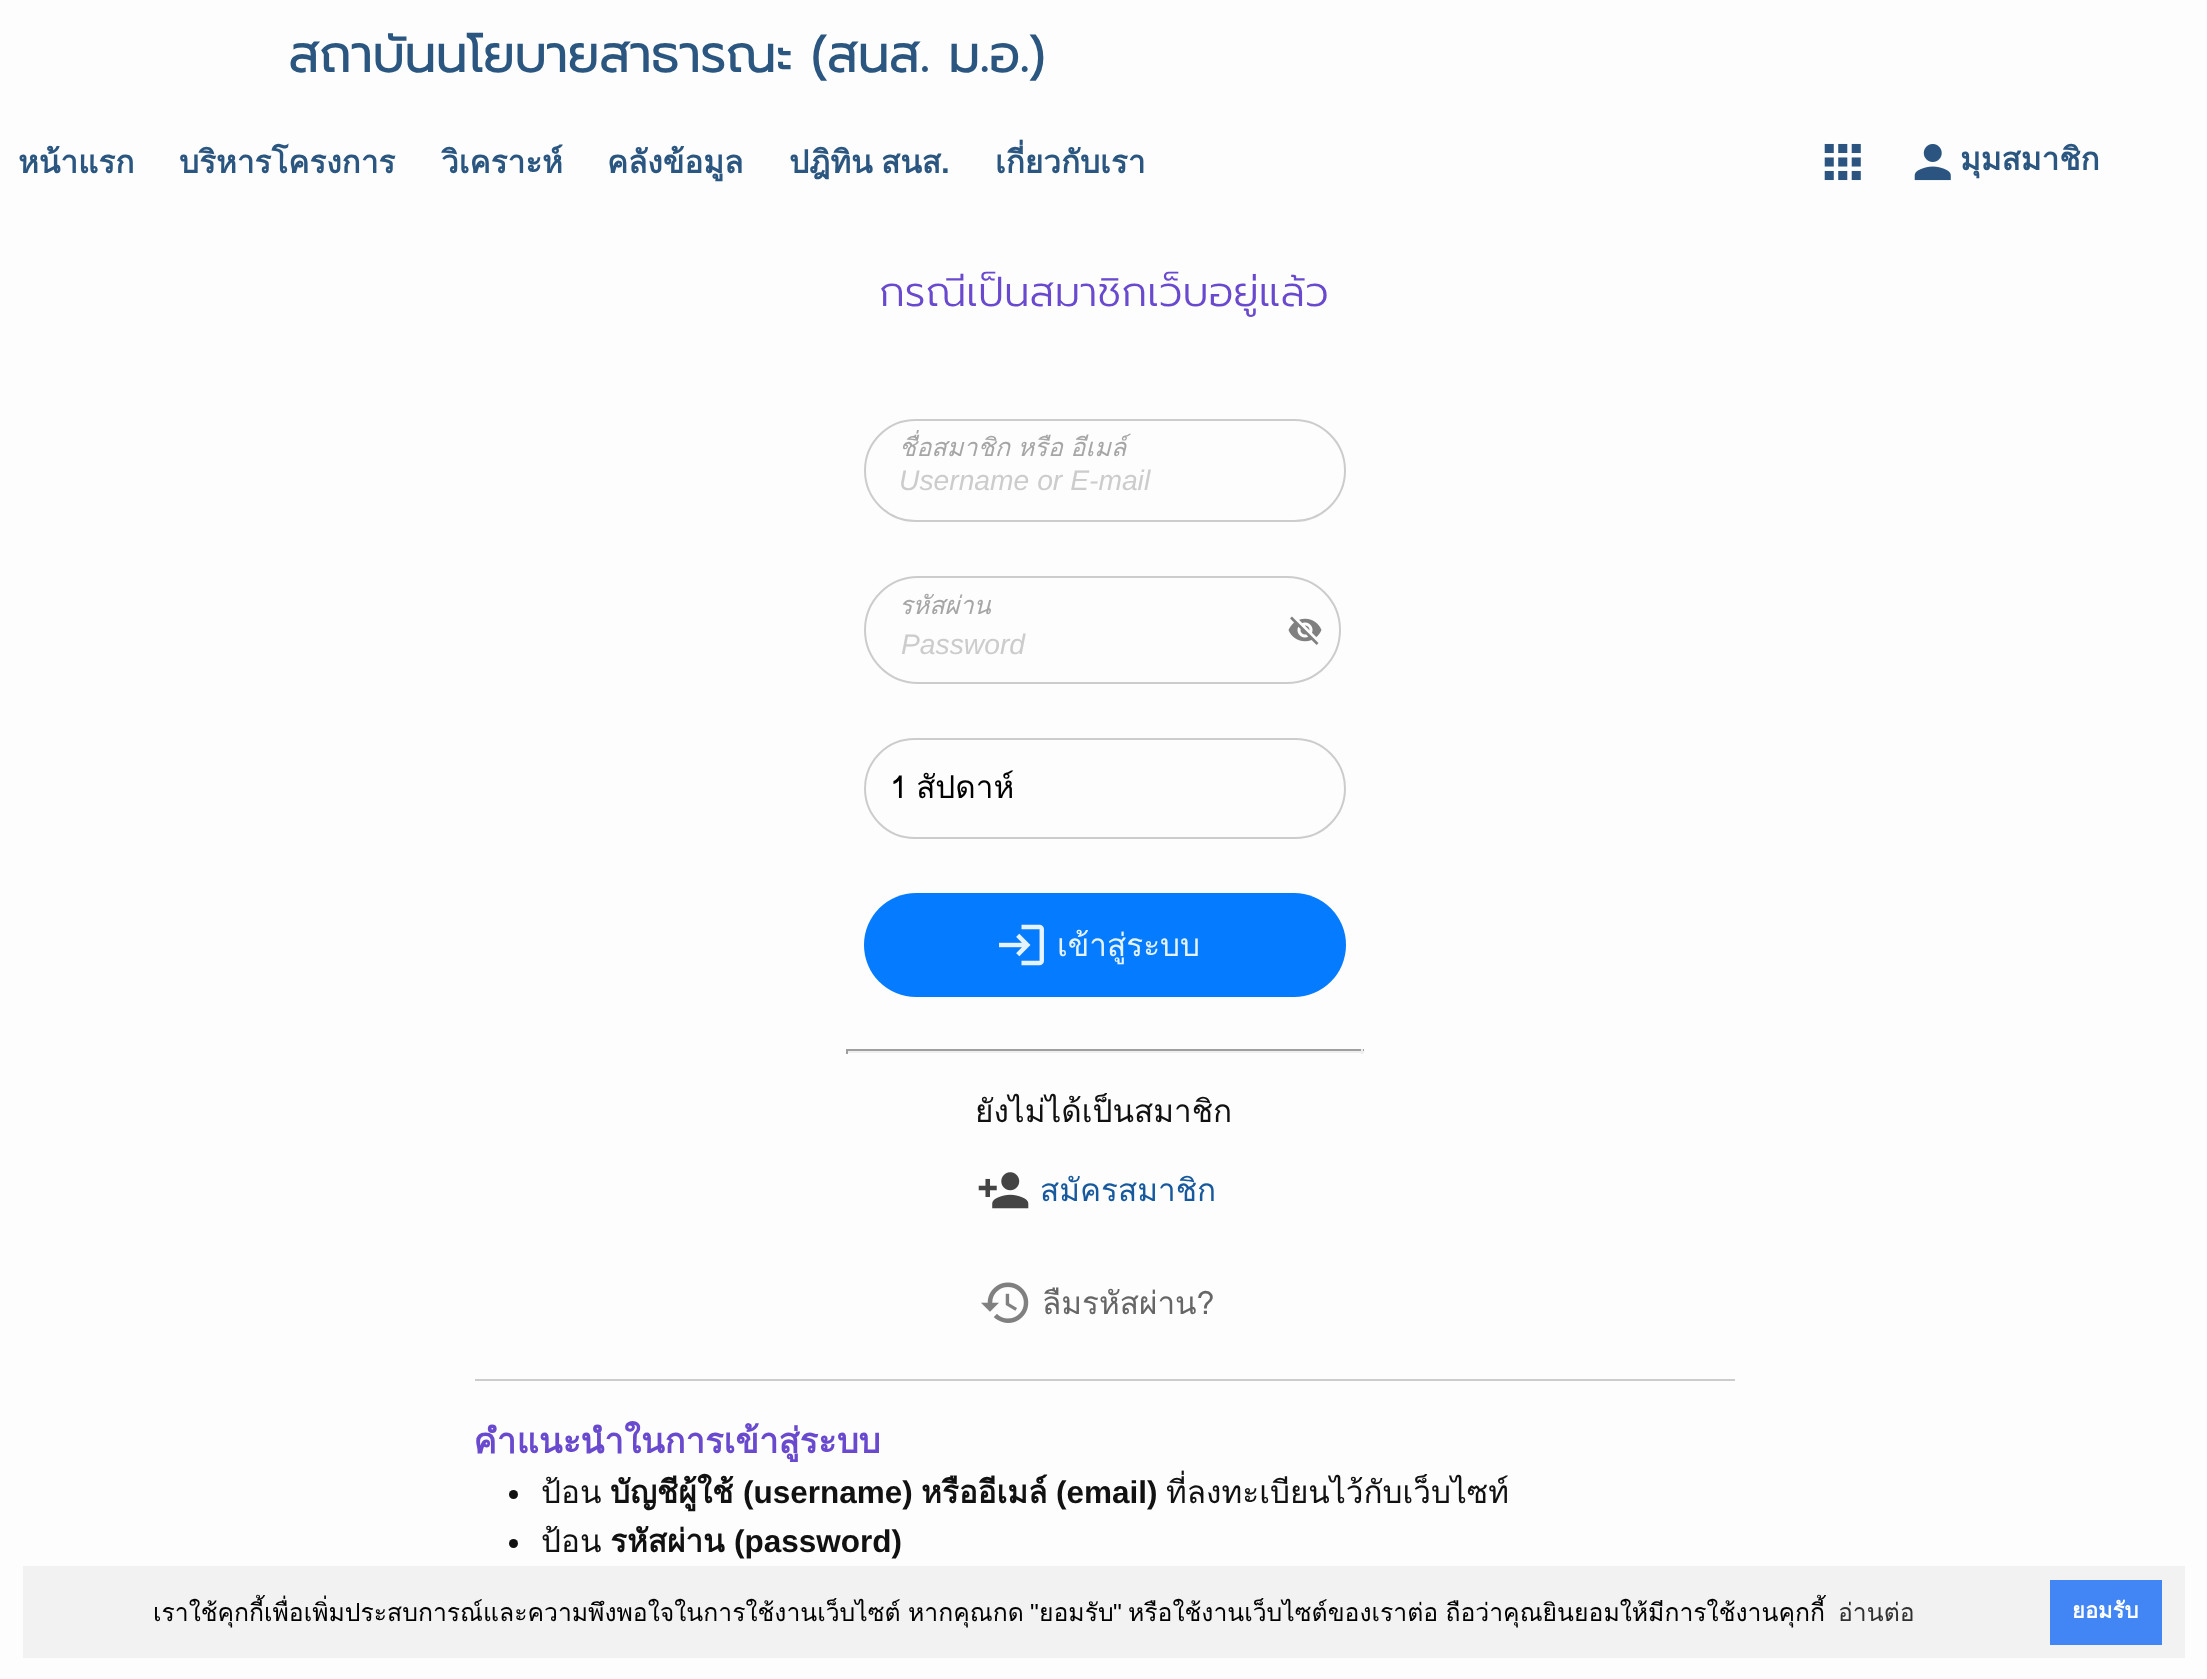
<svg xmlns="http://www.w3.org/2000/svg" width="2207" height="1679">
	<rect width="100%" height="100%" fill="#FDFDFD" />
	<text x="288" y="72" font-family="Prompt" font-size="50.4" font-weight="700" fill="#2B5680">สถาบันนโยบายสาธารณะ (สนส. ม.อ.)</text>
	<g font-family="Loma" font-size="31.5" font-weight="700" fill="#2B5680">
		<text x="18" y="173">หน้าแรก</text>
		<text x="179" y="173">บริหารโครงการ</text>
		<text x="441" y="173">วิเคราะห์</text>
		<text x="607" y="173">คลังข้อมูล</text>
		<text x="789" y="173" word-spacing="-2">ปฎิทิน สนส</text>
	</g>
	<text x="941" y="173" font-family="Liberation Sans" font-size="31.5" font-weight="700" fill="#2B5680">.</text>
	<text x="995" y="173" font-family="Loma" font-size="31.5" font-weight="700" fill="#2B5680">เกี่ยวกับเรา</text>
	<image x="1824" y="143" width="37" height="38" href="assets/img1.png" />
	<image x="1914" y="144" width="37" height="37" href="assets/img2.png" />
	<text x="1960" y="170" font-family="Loma" font-size="31.5" font-weight="700" fill="#2B5680">มุมสมาชิก</text>
	<text x="879" y="306" font-family="Prompt" font-size="41" font-weight="300" fill="#694ACE">กรณีเป็นสมาชิกเว็บอยู่แล้ว</text>
	<rect x="865" y="420" width="480" height="101" rx="50.5" fill="none" stroke="#CCCCCC" stroke-width="2" />
	<text x="899" y="456" word-spacing="-1" font-family="Loma" font-size="25.25" font-style="italic" fill="#A6A6A6">ชื่อสมาชิก หรือ อีเมล์</text>
	<text x="899" y="490" font-family="Liberation Sans" font-size="28.25" font-style="italic" fill="#CCCCCC">Username or E-mail</text>
	<rect x="865" y="577" width="475" height="106" rx="53" fill="none" stroke="#CCCCCC" stroke-width="2" />
	<text x="899" y="614" font-family="Loma" font-size="25.25" font-style="italic" fill="#A6A6A6">รหัสผ่าน</text>
	<text x="901" y="654" font-family="Liberation Sans" font-size="28.25" font-style="italic" fill="#CCCCCC">Password</text>
	<image x="1288" y="616" width="34" height="29" href="assets/img3.png" />
	<rect x="865" y="739" width="480" height="99" rx="49.5" fill="none" stroke="#CCCCCC" stroke-width="2" />
	<text x="890" y="798" word-spacing="-2" font-family="Loma" font-size="31.5" fill="#000000">1 สัปดาห์</text>
	<rect x="864" y="893" width="482" height="104" rx="52" fill="#057BFF" />
	<image x="999" y="924" width="45" height="42" href="assets/img4.png" />
	<text x="1057" y="956" font-family="Loma" font-size="31.5" fill="#E5F2FF">เข้าสู่ระบบ</text>
	<rect x="846" y="1049" width="518" height="2" fill="#9F9F9F" />
	<rect x="1361" y="1049" width="2" height="5" fill="#EEEEEE" />
	<rect x="846" y="1051" width="518" height="2" fill="#EEEEEE" />
	<rect x="846" y="1049" width="2" height="5" fill="#9F9F9F" />
	<text x="975" y="1122" font-family="Loma" font-size="31.5" fill="#111111">ยังไม่ได้เป็นสมาชิก</text>
	<image x="978" y="1172" width="51" height="37" href="assets/img5.png" />
	<text x="1040" y="1201" font-family="Loma" font-size="31.5" fill="#17599C">สมัครสมาชิก</text>
	<text x="1042" y="1314" font-family="Loma" font-size="31.5" fill="#666666">ลืมรหัสผ่าน?</text>
	<image x="981" y="1282" width="48" height="41" href="assets/img6.png" />
	<rect x="475" y="1379" width="1260" height="2" fill="#CCCCCC" />
	<text x="474" y="1453" font-family="Loma" font-size="34.6" font-weight="700" fill="#694ACE">คำแนะนำในการเข้าสู่ระบบ</text>
	<circle cx="513.5" cy="1494.5" r="4.5" fill="#111111" />
	<text x="541" y="1503" font-family="Loma" font-size="31.5" fill="#111111">ป้อน</text>
	<text x="610" y="1503" font-family="Loma" font-size="31.5" font-weight="700" fill="#111111">บัญชีผู้ใช้</text>
	<text x="743" y="1503" font-family="Liberation Sans" font-size="31.5" font-weight="700" fill="#111111">(username)</text>
	<text x="921" y="1503" font-family="Loma" font-size="31.5" font-weight="700" fill="#111111">หรืออีเมล์</text>
	<text x="1056" y="1503" font-family="Liberation Sans" font-size="31.5" font-weight="700" fill="#111111">(email)</text>
	<text x="1166" y="1503" font-family="Loma" font-size="31.5" fill="#111111">ที่ลงทะเบียนไว้กับเว็บไซท์</text>
	<circle cx="513.5" cy="1543.5" r="4.5" fill="#111111" />
	<text x="541" y="1552" font-family="Loma" font-size="31.5" fill="#111111">ป้อน</text>
	<text x="610" y="1552" font-family="Loma" font-size="31.5" font-weight="700" fill="#111111">รหัสผ่าน</text>
	<text x="734" y="1552" font-family="Liberation Sans" font-size="31.5" font-weight="700" fill="#111111">(password)</text>
	<rect x="23" y="1566" width="2162" height="92" fill="#F2F2F2" />
	<text x="153" y="1621" word-spacing="-1" font-family="Loma" font-size="24.75" fill="#000000">เราใช้คุกกี้เพื่อเพิ่มประสบการณ์และความพึงพอใจในการใช้งานเว็บไซต์ หากคุณกด</text>
	<text x="1030" y="1621" font-family="Liberation Sans" font-size="24.75" fill="#000000">"</text>
	<text x="1039" y="1621" font-family="Loma" font-size="24.75" fill="#000000">ยอมรับ</text>
	<text x="1113" y="1621" font-family="Liberation Sans" font-size="24.75" fill="#000000">"</text>
	<text x="1128" y="1621" word-spacing="-1" font-family="Loma" font-size="24.75" fill="#000000">หรือใช้งานเว็บไซต์ของเราต่อ ถือว่าคุณยินยอมให้มีการใช้งานคุกกี้</text>
	<text x="1838" y="1621" font-family="Loma" font-size="24.75" fill="#303030">อ่านต่อ</text>
	<rect x="2050" y="1580" width="112" height="65" fill="#4285F4" />
	<text x="2072" y="1618" font-family="Loma" font-size="22" font-weight="700" fill="#FFFFFF">ยอมรับ</text>
</svg>
